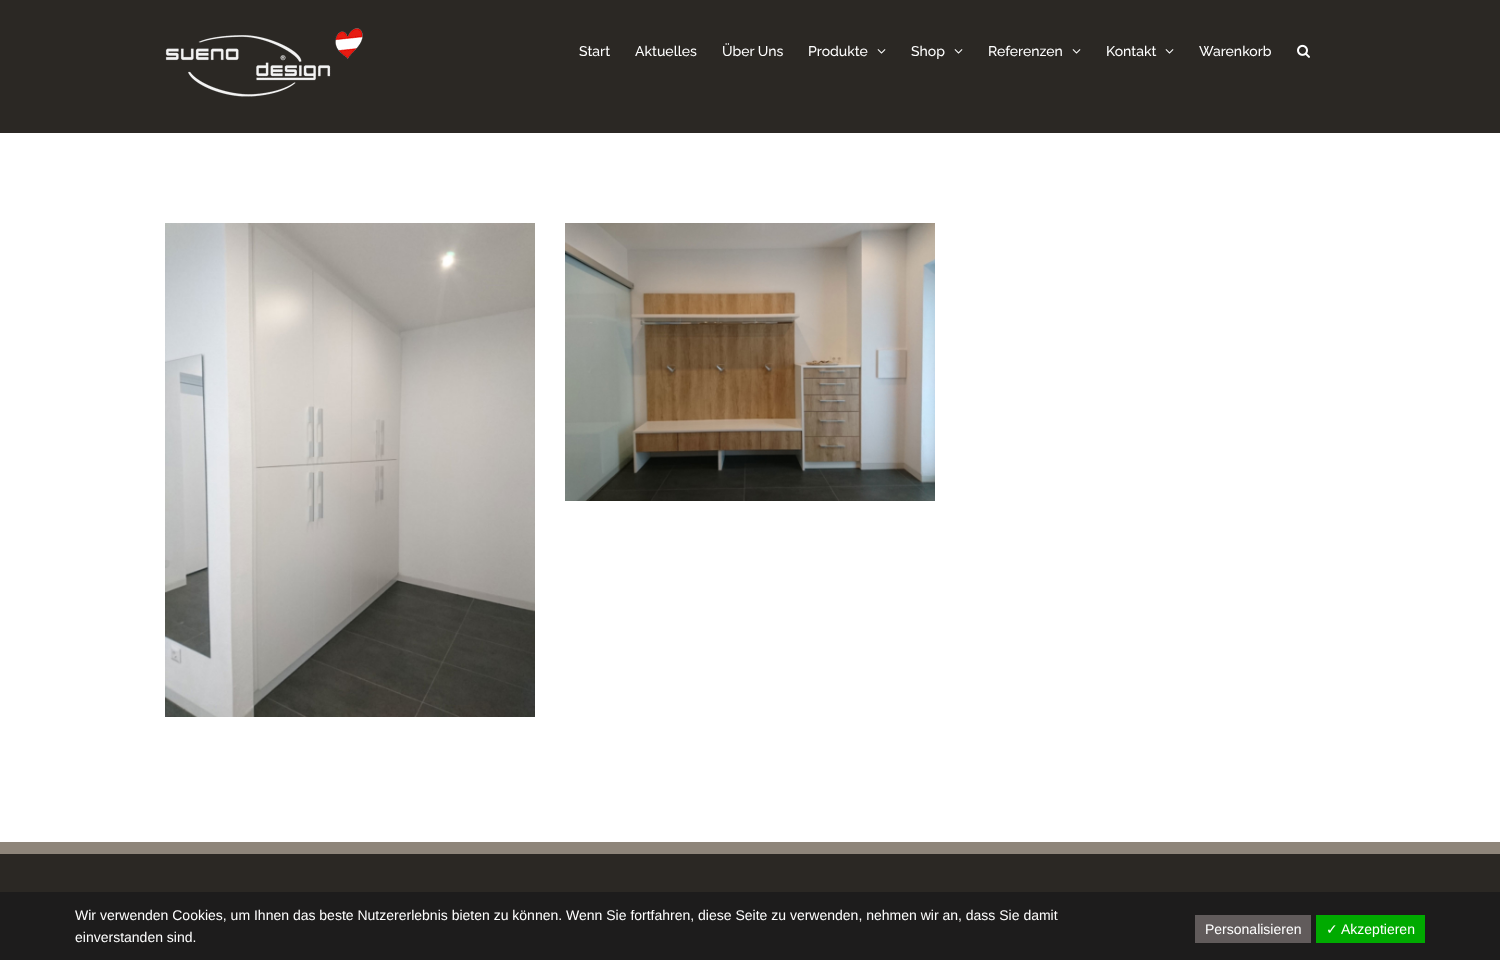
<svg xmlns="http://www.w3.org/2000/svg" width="1500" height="960">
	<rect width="100%" height="100%" fill="#FFFFFF" />
	<rect x="0" y="0" width="1500" height="133" fill="#2B2824" />
	<image x="165" y="28" width="198" height="69" href="assets/img1.png" />
	<g font-family="Raleway" font-size="14" font-weight="500" fill="#FFFFFF">
		<text x="579" y="56">Start</text>
		<text x="635" y="56">Aktuelles</text>
		<text x="722" y="56">Über Uns</text>
		<text x="808" y="56">Produkte</text>
	</g>
	<image x="877" y="49" width="9" height="5" href="assets/img2.png" />
	<text x="911" y="56" font-family="Raleway" font-size="14" font-weight="500" fill="#FFFFFF">Shop</text>
	<image x="954" y="49" width="9" height="5" href="assets/img2.png" />
	<text x="988" y="56" font-family="Raleway" font-size="14" font-weight="500" fill="#FFFFFF">Referenzen</text>
	<image x="1072" y="49" width="9" height="5" href="assets/img2.png" />
	<text x="1106" y="56" font-family="Raleway" font-size="14" font-weight="500" fill="#FFFFFF">Kontakt</text>
	<image x="1165" y="49" width="9" height="5" href="assets/img2.png" />
	<text x="1199" y="56" font-family="Raleway" font-size="14" font-weight="500" fill="#FFFFFF">Warenkorb</text>
	<image x="1297" y="44" width="13" height="14" href="assets/img3.png" />
	<image x="165" y="223" width="370" height="494" href="assets/img4.png" />
	<image x="565" y="223" width="370" height="278" href="assets/img5.png" />
	<rect x="0" y="854" width="1500" height="38" fill="#2B2824" />
	<rect x="0" y="842" width="1500" height="12" fill="#8E857A" />
	<rect x="0" y="892" width="1500" height="68" fill="#1D1C1C" />
	<g font-family="Liberation Sans" font-size="14" fill="#FFFFFF">
		<text x="75" y="920">Wir verwenden Cookies, um Ihnen das beste Nutzererlebnis bieten zu können. Wenn Sie fortfahren, diese Seite zu verwenden, nehmen wir an, dass Sie damit</text>
		<text x="75" y="942">einverstanden sind.</text>
	</g>
	<rect x="1195" y="915" width="116" height="28" fill="#615B5B" />
	<text x="1205" y="934" font-family="Liberation Sans" font-size="14" fill="#FFFFFF">Personalisieren</text>
	<rect x="1316" y="915" width="109" height="28" fill="#00AA00" />
	<text x="1326" y="934" font-family="DejaVu Sans" font-size="14" fill="#FFFFFF">✓</text>
	<text x="1341" y="934" font-family="Liberation Sans" font-size="14" fill="#FFFFFF">Akzeptieren</text>
</svg>
